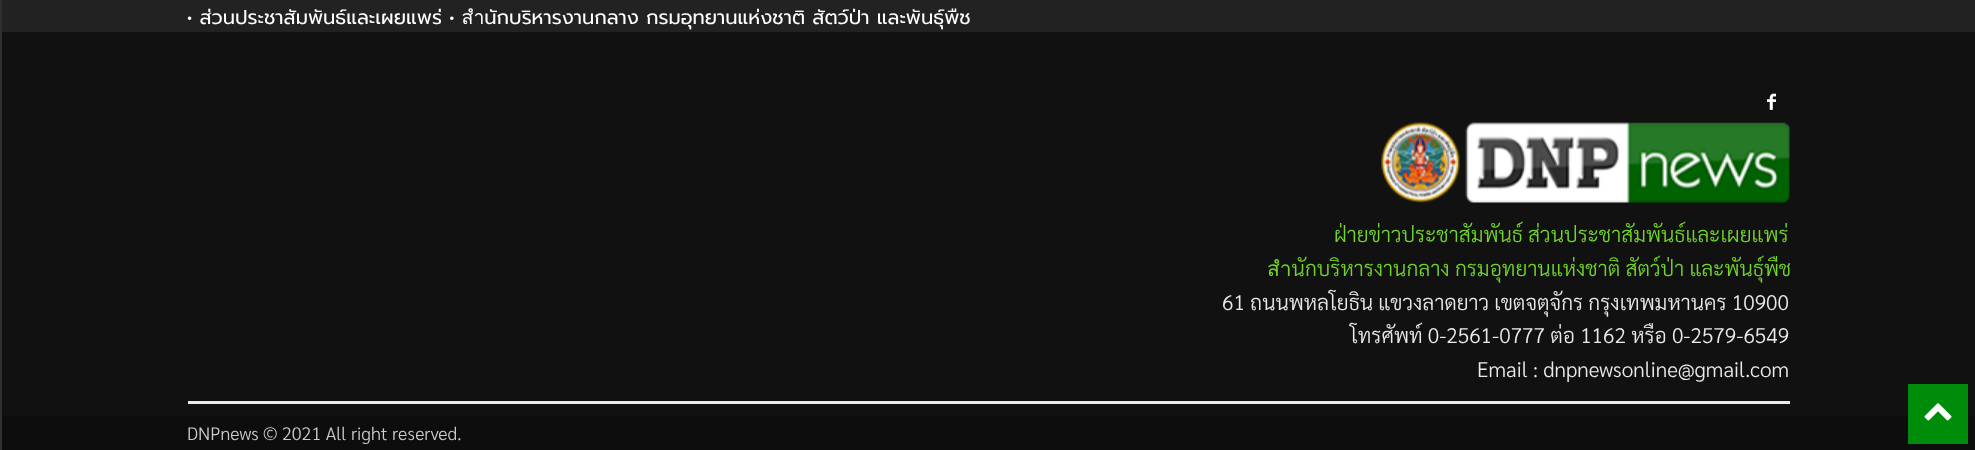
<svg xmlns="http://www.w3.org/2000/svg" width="1975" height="450">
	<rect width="100%" height="100%" fill="#303030" />
	<rect x="2" y="0" width="1973" height="32" fill="#222222" />
	<text x="187" y="24" font-family="Prompt" font-size="19.5" fill="#FFFFFF">• ส่วนประชาสัมพันธ์และเผยแพร่ • สำนักบริหารงานกลาง กรมอุทยานแห่งชาติ สัตว์ป่า และพันธุ์พืช</text>
	<rect x="2" y="32" width="1973" height="384" fill="#111111" />
	<image x="1767" y="93" width="9" height="17" href="assets/img1.png" />
	<image x="1381" y="122" width="409" height="81" href="assets/img2.png" />
	<g font-family="Sarabun" font-size="21" font-weight="300" fill="#72D62A">
		<text x="1334" y="242">ฝ่ายข่าวประชาสัมพันธ์ ส่วนประชาสัมพันธ์และเผยแพร่</text>
		<text x="1267" y="276">สำนักบริหารงานกลาง กรมอุทยานแห่งชาติ สัตว์ป่า และพันธุ์พืช</text>
	</g>
	<g font-family="Sarabun" font-size="21" font-weight="300" fill="#EAEAEA">
		<text x="1222" y="310">61 ถนนพหลโยธิน แขวงลาดยาว เขตจตุจักร กรุงเทพมหานคร 10900</text>
		<text x="1350" y="343">โทรศัพท์ 0-2561-0777 ต่อ 1162 หรือ 0-2579-6549</text>
		<text x="1477" y="377">Email : dnpnewsonline@gmail.com</text>
	</g>
	<rect x="2" y="416" width="1973" height="34" fill="#0D0D0D" />
	<rect x="188" y="401" width="1602" height="3" fill="#EBEBEB" />
	<text x="187" y="440" font-family="Sarabun" font-size="18" font-weight="300" fill="#CCCCCC">DNPnews © 2021 All right reserved.</text>
	<rect x="1908" y="384" width="60" height="60" fill="#008C0B" />
	<image x="1924" y="403" width="28" height="18" href="assets/img3.png" />
</svg>
